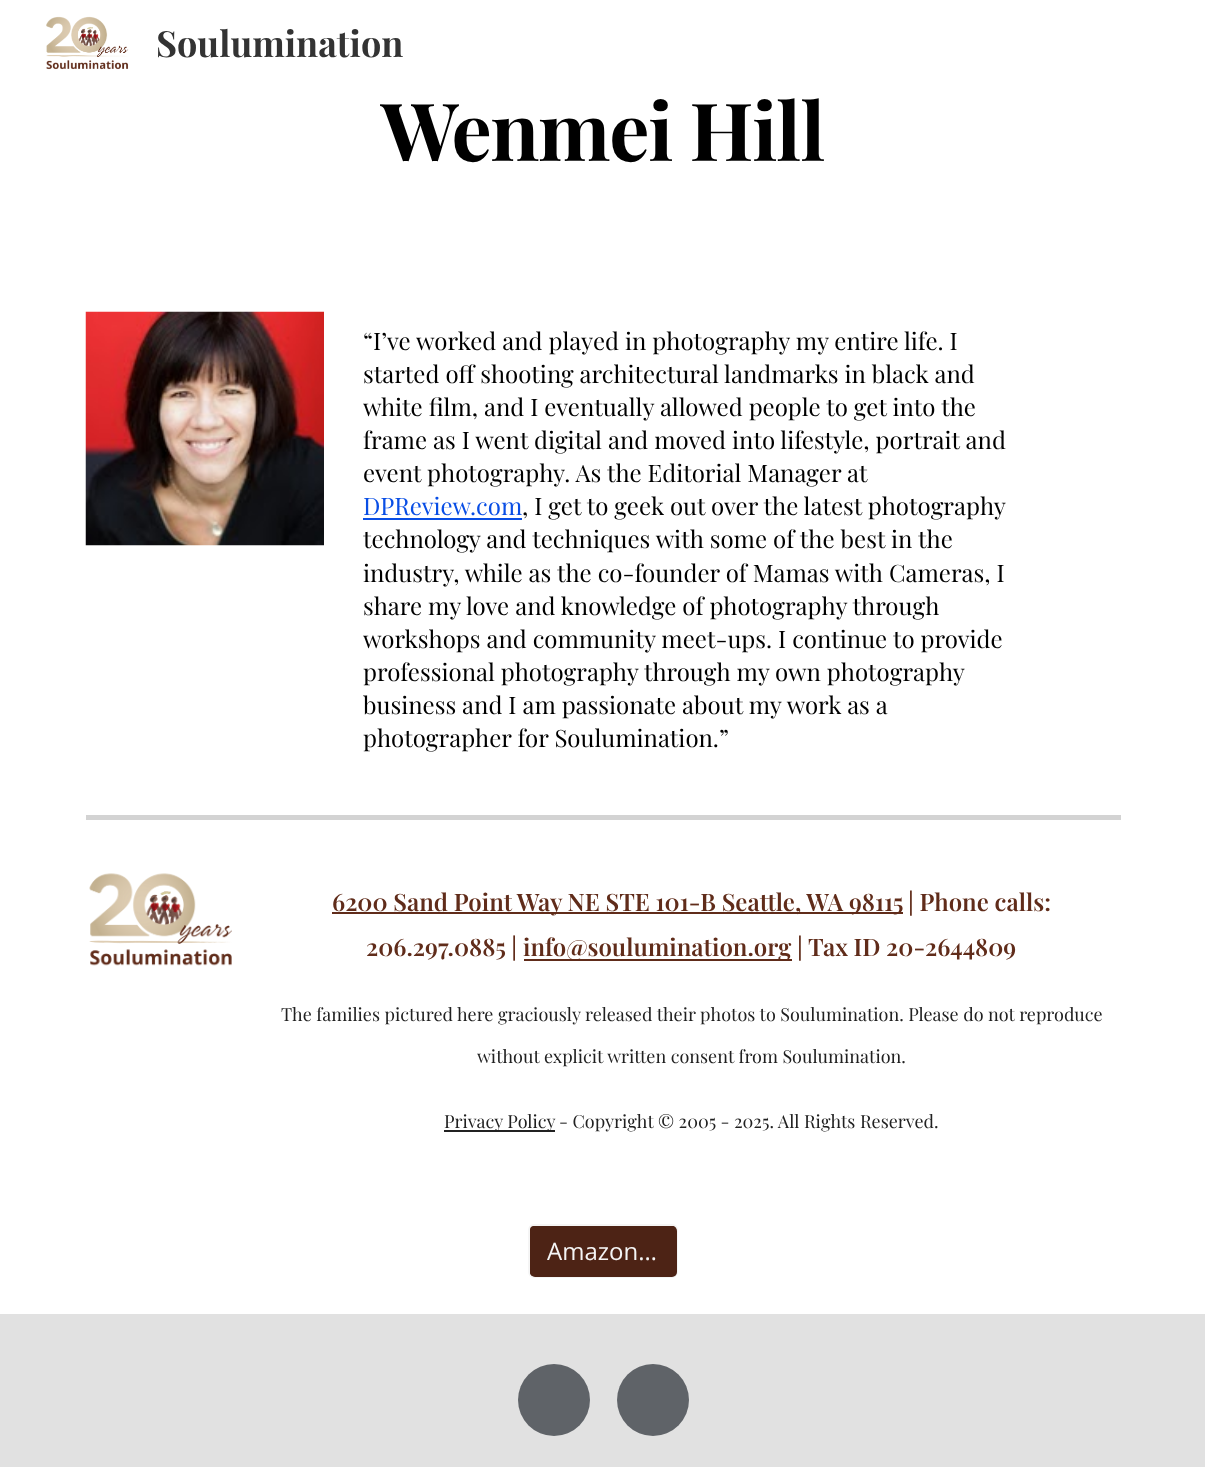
<svg xmlns="http://www.w3.org/2000/svg" width="1205" height="1467">
	<rect width="100%" height="100%" fill="#FFFFFF" />
	<image x="46" y="16" width="83" height="54" href="assets/img1.png" />
	<text x="156" y="57" font-family="Playfair Display" font-size="36" font-weight="700" fill="#333333">Soulumination</text>
	<text x="381" y="161" font-family="Playfair Display" font-size="80" font-weight="700" letter-spacing="-1.25" fill="#000000">Wenmei Hill</text>
	<image x="85" y="311" width="239" height="235" href="assets/img2.png" />
	<g font-family="Playfair Display" font-size="24" fill="#000000">
		<text x="363" y="350">“I’ve worked and played in photography my entire life. I</text>
		<text x="363" y="383">started off shooting architectural landmarks in black and</text>
		<text x="363" y="416">white film, and I eventually allowed people to get into the</text>
		<text x="363" y="449">frame as I went digital and moved into lifestyle, portrait and</text>
		<text x="363" y="482">event photography. As the Editorial Manager at</text>
	</g>
	<text x="363" y="515" font-family="Playfair Display" font-size="24" fill="#094EE5">DPReview.com</text>
	<rect x="363" y="518" width="159" height="2" fill="#094EE5" />
	<g font-family="Playfair Display" font-size="24" fill="#000000">
		<text x="522" y="515">, I get to geek out over the latest photography</text>
		<text x="363" y="548">technology and techniques with some of the best in the</text>
		<text x="363" y="582">industry, while as the co-founder of Mamas with Cameras, I</text>
		<text x="363" y="615">share my love and knowledge of photography through</text>
		<text x="363" y="648">workshops and community meet-ups. I continue to provide</text>
		<text x="363" y="681">professional photography through my own photography</text>
		<text x="363" y="714">business and I am passionate about my work as a</text>
		<text x="363" y="747">photographer for Soulumination.”</text>
	</g>
	<rect x="86" y="815" width="1035" height="5" fill="#D3D3D3" />
	<image x="89" y="873" width="143" height="93" href="assets/img3.png" />
	<rect x="332" y="912" width="571" height="2" fill="#602C1A" />
	<g font-family="Playfair Display" font-size="24" font-weight="600" fill="#602C1A">
		<text x="332" y="911">6200 Sand Point Way NE STE 101-B Seattle, WA 98115</text>
		<text x="908" y="911">| Phone calls:</text>
		<text x="366" y="956">206.297.0885 |</text>
	</g>
	<rect x="524" y="959" width="268" height="2" fill="#602C1A" />
	<text x="523" y="956" font-family="Playfair Display" font-size="24" font-weight="600" fill="#602C1A">info@soulumination.org | Tax ID 20-2644809</text>
	<g font-family="Playfair Display" font-size="18" fill="#212121">
		<text x="281" y="1021">The families pictured here graciously released their photos to Soulumination. Please do not reproduce</text>
		<text x="477" y="1063">without explicit written consent from Soulumination.</text>
	</g>
	<rect x="444" y="1130" width="111" height="2" fill="#212121" />
	<g font-family="Playfair Display" font-size="18" fill="#212121">
		<text x="444" y="1128">Privacy Policy</text>
		<text x="559" y="1128">- Copyright © 2005 - 2025. All Rights Reserved.</text>
	</g>
	<rect x="529" y="1225" width="148" height="52" rx="5" fill="#4D2315" stroke="#F5F5F5" stroke-width="2" />
	<rect x="530" y="1226" width="147" height="51" rx="5" fill="#4D2315" />
	<text x="547" y="1260" font-family="Open Sans" font-size="24" fill="#F5F5F5">Amazon…</text>
	<rect x="0" y="1314" width="1205" height="153" fill="#E1E1E1" />
	<circle cx="554" cy="1400" r="36" fill="#5F6368" />
	<circle cx="653" cy="1400" r="36" fill="#5F6368" />
</svg>
